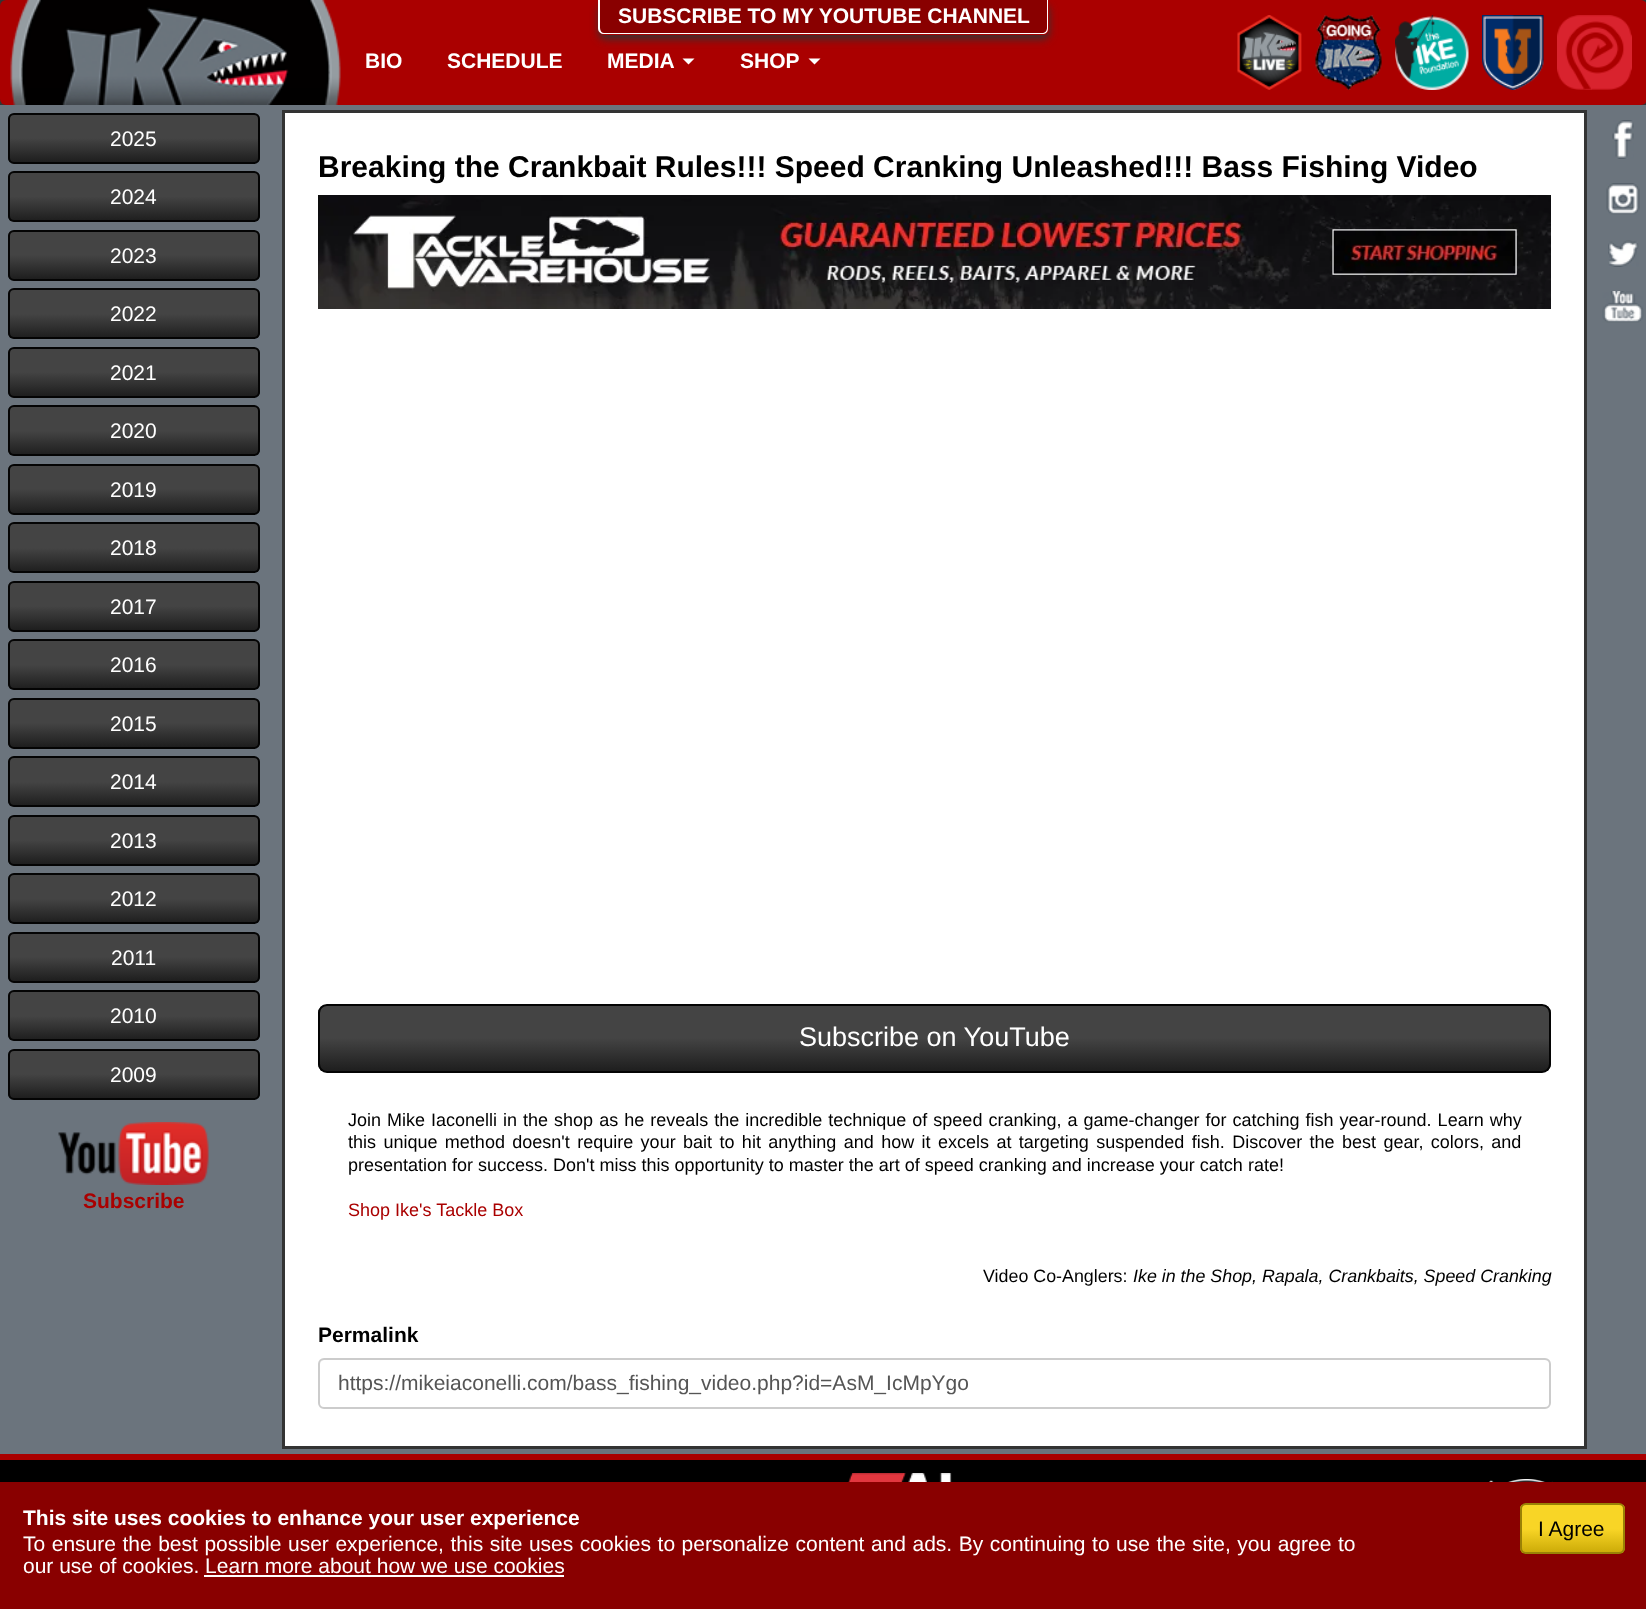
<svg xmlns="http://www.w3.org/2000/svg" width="1646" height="1609">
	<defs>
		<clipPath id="clip1"><path d="M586 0H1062V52H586ZM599 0H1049V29C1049 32.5 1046.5 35 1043 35H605C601.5 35 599 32.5 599 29Z" clip-rule="evenodd" /></clipPath>
		<clipPath id="clip2"><rect x="8" y="113" width="252" height="51" rx="6" /></clipPath>
		<linearGradient id="g1" gradientUnits="userSpaceOnUse" x1="134" y1="114" x2="134" y2="162"><stop offset="0.5" stop-color="#444444" /><stop offset="1" stop-color="#1E1E1E" /></linearGradient>
		<clipPath id="clip3"><rect x="8" y="171" width="252" height="51" rx="6" /></clipPath>
		<linearGradient id="g2" gradientUnits="userSpaceOnUse" x1="134" y1="172" x2="134" y2="221"><stop offset="0.5" stop-color="#444444" /><stop offset="1" stop-color="#1E1E1E" /></linearGradient>
		<clipPath id="clip4"><rect x="8" y="230" width="252" height="51" rx="6" /></clipPath>
		<linearGradient id="g3" gradientUnits="userSpaceOnUse" x1="134" y1="231" x2="134" y2="279"><stop offset="0.5" stop-color="#444444" /><stop offset="1" stop-color="#1E1E1E" /></linearGradient>
		<clipPath id="clip5"><rect x="8" y="288" width="252" height="51" rx="6" /></clipPath>
		<linearGradient id="g4" gradientUnits="userSpaceOnUse" x1="134" y1="290" x2="134" y2="338"><stop offset="0.5" stop-color="#444444" /><stop offset="1" stop-color="#1E1E1E" /></linearGradient>
		<clipPath id="clip6"><rect x="8" y="347" width="252" height="51" rx="6" /></clipPath>
		<linearGradient id="g5" gradientUnits="userSpaceOnUse" x1="134" y1="348" x2="134" y2="396"><stop offset="0.5" stop-color="#444444" /><stop offset="1" stop-color="#1E1E1E" /></linearGradient>
		<clipPath id="clip7"><rect x="8" y="405" width="252" height="51" rx="6" /></clipPath>
		<linearGradient id="g6" gradientUnits="userSpaceOnUse" x1="134" y1="407" x2="134" y2="455"><stop offset="0.5" stop-color="#444444" /><stop offset="1" stop-color="#1E1E1E" /></linearGradient>
		<clipPath id="clip8"><rect x="8" y="464" width="252" height="51" rx="6" /></clipPath>
		<linearGradient id="g7" gradientUnits="userSpaceOnUse" x1="134" y1="465" x2="134" y2="513"><stop offset="0.5" stop-color="#444444" /><stop offset="1" stop-color="#1E1E1E" /></linearGradient>
		<clipPath id="clip9"><rect x="8" y="522" width="252" height="51" rx="6" /></clipPath>
		<linearGradient id="g8" gradientUnits="userSpaceOnUse" x1="134" y1="524" x2="134" y2="572"><stop offset="0.5" stop-color="#444444" /><stop offset="1" stop-color="#1E1E1E" /></linearGradient>
		<clipPath id="clip10"><rect x="8" y="581" width="252" height="51" rx="6" /></clipPath>
		<linearGradient id="g9" gradientUnits="userSpaceOnUse" x1="134" y1="582" x2="134" y2="630"><stop offset="0.5" stop-color="#444444" /><stop offset="1" stop-color="#1E1E1E" /></linearGradient>
		<clipPath id="clip11"><rect x="8" y="639" width="252" height="51" rx="6" /></clipPath>
		<linearGradient id="g10" gradientUnits="userSpaceOnUse" x1="134" y1="641" x2="134" y2="689"><stop offset="0.5" stop-color="#444444" /><stop offset="1" stop-color="#1E1E1E" /></linearGradient>
		<clipPath id="clip12"><rect x="8" y="698" width="252" height="51" rx="6" /></clipPath>
		<linearGradient id="g11" gradientUnits="userSpaceOnUse" x1="134" y1="699" x2="134" y2="747"><stop offset="0.5" stop-color="#444444" /><stop offset="1" stop-color="#1E1E1E" /></linearGradient>
		<clipPath id="clip13"><rect x="8" y="756" width="252" height="51" rx="6" /></clipPath>
		<linearGradient id="g12" gradientUnits="userSpaceOnUse" x1="134" y1="758" x2="134" y2="806"><stop offset="0.5" stop-color="#444444" /><stop offset="1" stop-color="#1E1E1E" /></linearGradient>
		<clipPath id="clip14"><rect x="8" y="815" width="252" height="51" rx="6" /></clipPath>
		<linearGradient id="g13" gradientUnits="userSpaceOnUse" x1="134" y1="816" x2="134" y2="864"><stop offset="0.5" stop-color="#444444" /><stop offset="1" stop-color="#1E1E1E" /></linearGradient>
		<clipPath id="clip15"><rect x="8" y="873" width="252" height="51" rx="6" /></clipPath>
		<linearGradient id="g14" gradientUnits="userSpaceOnUse" x1="134" y1="875" x2="134" y2="923"><stop offset="0.5" stop-color="#444444" /><stop offset="1" stop-color="#1E1E1E" /></linearGradient>
		<clipPath id="clip16"><rect x="8" y="932" width="252" height="51" rx="6" /></clipPath>
		<linearGradient id="g15" gradientUnits="userSpaceOnUse" x1="134" y1="933" x2="134" y2="981"><stop offset="0.5" stop-color="#444444" /><stop offset="1" stop-color="#1E1E1E" /></linearGradient>
		<clipPath id="clip17"><rect x="8" y="990" width="252" height="51" rx="6" /></clipPath>
		<linearGradient id="g16" gradientUnits="userSpaceOnUse" x1="134" y1="992" x2="134" y2="1040"><stop offset="0.5" stop-color="#444444" /><stop offset="1" stop-color="#1E1E1E" /></linearGradient>
		<clipPath id="clip18"><rect x="8" y="1049" width="252" height="51" rx="6" /></clipPath>
		<linearGradient id="g17" gradientUnits="userSpaceOnUse" x1="134" y1="1050" x2="134" y2="1098"><stop offset="0.5" stop-color="#444444" /><stop offset="1" stop-color="#1E1E1E" /></linearGradient>
		<clipPath id="clip19"><rect x="318" y="1004" width="1233" height="69" rx="9" /></clipPath>
		<linearGradient id="g18" gradientUnits="userSpaceOnUse" x1="935" y1="1005" x2="935" y2="1071"><stop offset="0.5" stop-color="#444444" /><stop offset="1" stop-color="#1E1E1E" /></linearGradient>
		<linearGradient id="g19" gradientUnits="userSpaceOnUse" x1="824" y1="1460" x2="824" y2="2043"><stop offset="0.2" stop-color="#000000" /><stop offset="1" stop-color="#333333" /></linearGradient>
		<clipPath id="clip20"><rect x="1520" y="1503" width="105" height="51" rx="6" /></clipPath>
		<linearGradient id="g20" gradientUnits="userSpaceOnUse" x1="1572" y1="1505" x2="1572" y2="1553"><stop offset="0.5" stop-color="#F8D526" /><stop offset="1" stop-color="#CBAA07" /></linearGradient>
	</defs>
	<rect width="100%" height="100%" fill="#333333" />
	<rect x="0" y="0" width="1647" height="105" rx="6" fill="#AA0000" />
	<image x="10" y="0" width="331" height="105" href="assets/img1.png" />
	<g clip-path="url(#clip1)">
		<rect x="599" y="5" width="450" height="34" rx="6" fill="#333333" filter="blur(4px)" />
	</g>
	<path d="M600 0H1047V28C1047 31 1045 33 1042 33H605C602 33 600 31 600 28Z" fill="#890000" />
	<path d="M598 0H1048V28C1048 32 1046 34 1042 34H604C601 34 598 32 598 28ZM600 0H1047V28C1047 31 1045 33 1042 33H604C602 33 600 31 600 28Z" fill="#FFFFFF" fill-rule="evenodd" />
	<g font-family="Liberation Sans" font-size="21" font-weight="700" fill="#FFFFFF">
		<text x="618" y="23">SUBSCRIBE TO MY YOUTUBE CHANNEL</text>
		<text x="365" y="68">BIO</text>
		<text x="447" y="68">SCHEDULE</text>
		<text x="607" y="68">MEDIA</text>
	</g>
	<path d="M682.5 58.5H694.5L688.5 64.5Z" fill="#FFFFFF" />
	<text x="740" y="68" font-family="Liberation Sans" font-size="21" font-weight="700" fill="#FFFFFF">SHOP</text>
	<path d="M808.5 58.5H820.5L814.5 64.5Z" fill="#FFFFFF" />
	<image x="1237" y="15" width="65" height="75" href="assets/img2.png" />
	<image x="1315" y="15" width="67" height="75" href="assets/img3.png" />
	<image x="1395" y="15" width="74" height="75" href="assets/img4.png" />
	<image x="1482" y="15" width="62" height="75" href="assets/img5.png" />
	<image x="1557" y="15" width="75" height="75" href="assets/img6.png" />
	<rect x="0" y="105" width="1646" height="1349" fill="#6B747D" />
	<g clip-path="url(#clip2)">
		<rect x="8" y="114" width="252" height="48" fill="url(#g1)" />
	</g>
	<rect x="9" y="114" width="250" height="49" rx="5" fill="none" stroke="#040404" stroke-width="2" />
	<text x="110" y="146" font-family="Liberation Sans" font-size="21" fill="#FFFFFF">2025</text>
	<g clip-path="url(#clip3)">
		<rect x="8" y="173" width="252" height="48" fill="url(#g2)" />
	</g>
	<rect x="9" y="172" width="250" height="49" rx="5" fill="none" stroke="#040404" stroke-width="2" />
	<text x="110" y="204" font-family="Liberation Sans" font-size="21" fill="#FFFFFF">2024</text>
	<g clip-path="url(#clip4)">
		<rect x="8" y="231" width="252" height="48" fill="url(#g3)" />
	</g>
	<rect x="9" y="231" width="250" height="49" rx="5" fill="none" stroke="#040404" stroke-width="2" />
	<text x="110" y="263" font-family="Liberation Sans" font-size="21" fill="#FFFFFF">2023</text>
	<g clip-path="url(#clip5)">
		<rect x="8" y="290" width="252" height="48" fill="url(#g4)" />
	</g>
	<rect x="9" y="289" width="250" height="49" rx="5" fill="none" stroke="#040404" stroke-width="2" />
	<text x="110" y="321" font-family="Liberation Sans" font-size="21" fill="#FFFFFF">2022</text>
	<g clip-path="url(#clip6)">
		<rect x="8" y="348" width="252" height="48" fill="url(#g5)" />
	</g>
	<rect x="9" y="348" width="250" height="49" rx="5" fill="none" stroke="#040404" stroke-width="2" />
	<text x="110" y="380" font-family="Liberation Sans" font-size="21" fill="#FFFFFF">2021</text>
	<g clip-path="url(#clip7)">
		<rect x="8" y="407" width="252" height="48" fill="url(#g6)" />
	</g>
	<rect x="9" y="406" width="250" height="49" rx="5" fill="none" stroke="#040404" stroke-width="2" />
	<text x="110" y="438" font-family="Liberation Sans" font-size="21" fill="#FFFFFF">2020</text>
	<g clip-path="url(#clip8)">
		<rect x="8" y="465" width="252" height="48" fill="url(#g7)" />
	</g>
	<rect x="9" y="465" width="250" height="49" rx="5" fill="none" stroke="#040404" stroke-width="2" />
	<text x="110" y="497" font-family="Liberation Sans" font-size="21" fill="#FFFFFF">2019</text>
	<g clip-path="url(#clip9)">
		<rect x="8" y="524" width="252" height="48" fill="url(#g8)" />
	</g>
	<rect x="9" y="523" width="250" height="49" rx="5" fill="none" stroke="#040404" stroke-width="2" />
	<text x="110" y="555" font-family="Liberation Sans" font-size="21" fill="#FFFFFF">2018</text>
	<g clip-path="url(#clip10)">
		<rect x="8" y="582" width="252" height="48" fill="url(#g9)" />
	</g>
	<rect x="9" y="582" width="250" height="49" rx="5" fill="none" stroke="#040404" stroke-width="2" />
	<text x="110" y="614" font-family="Liberation Sans" font-size="21" fill="#FFFFFF">2017</text>
	<g clip-path="url(#clip11)">
		<rect x="8" y="641" width="252" height="48" fill="url(#g10)" />
	</g>
	<rect x="9" y="640" width="250" height="49" rx="5" fill="none" stroke="#040404" stroke-width="2" />
	<text x="110" y="672" font-family="Liberation Sans" font-size="21" fill="#FFFFFF">2016</text>
	<g clip-path="url(#clip12)">
		<rect x="8" y="699" width="252" height="48" fill="url(#g11)" />
	</g>
	<rect x="9" y="699" width="250" height="49" rx="5" fill="none" stroke="#040404" stroke-width="2" />
	<text x="110" y="731" font-family="Liberation Sans" font-size="21" fill="#FFFFFF">2015</text>
	<g clip-path="url(#clip13)">
		<rect x="8" y="758" width="252" height="48" fill="url(#g12)" />
	</g>
	<rect x="9" y="757" width="250" height="49" rx="5" fill="none" stroke="#040404" stroke-width="2" />
	<text x="110" y="789" font-family="Liberation Sans" font-size="21" fill="#FFFFFF">2014</text>
	<g clip-path="url(#clip14)">
		<rect x="8" y="816" width="252" height="48" fill="url(#g13)" />
	</g>
	<rect x="9" y="816" width="250" height="49" rx="5" fill="none" stroke="#040404" stroke-width="2" />
	<text x="110" y="848" font-family="Liberation Sans" font-size="21" fill="#FFFFFF">2013</text>
	<g clip-path="url(#clip15)">
		<rect x="8" y="875" width="252" height="48" fill="url(#g14)" />
	</g>
	<rect x="9" y="874" width="250" height="49" rx="5" fill="none" stroke="#040404" stroke-width="2" />
	<text x="110" y="906" font-family="Liberation Sans" font-size="21" fill="#FFFFFF">2012</text>
	<g clip-path="url(#clip16)">
		<rect x="8" y="933" width="252" height="48" fill="url(#g15)" />
	</g>
	<rect x="9" y="933" width="250" height="49" rx="5" fill="none" stroke="#040404" stroke-width="2" />
	<text x="111" y="965" font-family="Liberation Sans" font-size="21" fill="#FFFFFF">2011</text>
	<g clip-path="url(#clip17)">
		<rect x="8" y="992" width="252" height="48" fill="url(#g16)" />
	</g>
	<rect x="9" y="991" width="250" height="49" rx="5" fill="none" stroke="#040404" stroke-width="2" />
	<text x="110" y="1023" font-family="Liberation Sans" font-size="21" fill="#FFFFFF">2010</text>
	<g clip-path="url(#clip18)">
		<rect x="8" y="1050" width="252" height="48" fill="url(#g17)" />
	</g>
	<rect x="9" y="1050" width="250" height="49" rx="5" fill="none" stroke="#040404" stroke-width="2" />
	<text x="110" y="1082" font-family="Liberation Sans" font-size="21" fill="#FFFFFF">2009</text>
	<image x="58" y="1122" width="151" height="63" href="assets/img7.png" />
	<text x="83" y="1208" font-family="Liberation Sans" font-size="21" font-weight="700" fill="#AA0000">Subscribe</text>
	<rect x="283.5" y="111.5" width="1302" height="1336" fill="#FFFFFF" stroke="#333333" stroke-width="3" />
	<text x="318" y="177" font-family="Liberation Sans" font-size="30" font-weight="700" fill="#000000">Breaking the Crankbait Rules!!! Speed Cranking Unleashed!!! Bass Fishing Video</text>
	<image x="318" y="195" width="1233" height="114" href="assets/img8.png" />
	<g clip-path="url(#clip19)">
		<rect x="318" y="1005" width="1233" height="66" fill="url(#g18)" />
	</g>
	<rect x="319" y="1005" width="1231" height="67" rx="8" fill="none" stroke="#040404" stroke-width="2" />
	<text x="799" y="1046" font-family="Liberation Sans" font-size="27" fill="#FFFFFF">Subscribe on YouTube</text>
	<g font-family="Liberation Sans" font-size="18" fill="#000000">
		<text x="348" y="1126" word-spacing="1">Join Mike Iaconelli in the shop as he reveals the incredible technique of speed cranking, a game-changer for catching fish year-round. Learn why</text>
		<text x="348" y="1148" word-spacing="2.4">this unique method doesn't require your bait to hit anything and how it excels at targeting suspended fish. Discover the best gear, colors, and</text>
		<text x="348" y="1171">presentation for success. Don't miss this opportunity to master the art of speed cranking and increase your catch rate!</text>
	</g>
	<text x="348" y="1216" font-family="Liberation Sans" font-size="18" fill="#AA0000">Shop Ike's Tackle Box</text>
	<text x="983" y="1282" font-family="Liberation Sans" font-size="17.85" fill="#000000">Video Co-Anglers:</text>
	<text x="1133" y="1282" font-family="Liberation Sans" font-size="17.85" font-style="italic" fill="#000000">Ike in the Shop, Rapala, Crankbaits, Speed Cranking</text>
	<text x="318" y="1342" font-family="Liberation Sans" font-size="21" font-weight="700" fill="#000000">Permalink</text>
	<path d="M324 1360H1545C1547 1360 1550 1363 1550 1365C1550 1362 1548 1359 1545 1359H325C322 1359 320 1362 320 1365C320 1363 322 1360 324 1360Z" fill="#ECECEC" />
	<rect x="319" y="1359" width="1231" height="49" rx="5" fill="none" stroke="#CCCCCC" stroke-width="2" />
	<text x="338" y="1390" font-family="Liberation Sans" font-size="21" fill="#555555">https://mikeiaconelli.com/bass_fishing_video.php?id=AsM_IcMpYgo</text>
	<image x="1612" y="120" width="22" height="39" href="assets/img9.png" />
	<image x="1606" y="183" width="34" height="32" href="assets/img10.png" />
	<image x="1608" y="240" width="31" height="27" href="assets/img11.png" />
	<image x="1602" y="291" width="42" height="32" href="assets/img12.png" />
	<rect x="0" y="1454" width="1646" height="6" fill="#AA0000" />
	<rect x="0" y="1460" width="1646" height="22" fill="url(#g19)" />
	<image x="848" y="1473" width="104" height="9" href="assets/img13.png" />
	<image x="1489" y="1479" width="64" height="3" href="assets/img14.png" />
	<rect x="0" y="1482" width="1646" height="127" fill="#890000" />
	<text x="23" y="1525" font-family="Liberation Sans" font-size="21" font-weight="700" fill="#FFFFFF">This site uses cookies to enhance your user experience</text>
	<g font-family="Liberation Sans" font-size="21" fill="#FFFFFF">
		<text x="23" y="1551" word-spacing="0.7">To ensure the best possible user experience, this site uses cookies to personalize content and ads. By continuing to use the site, you agree to</text>
		<text x="23" y="1573">our use of cookies. Learn more about how we use cookies</text>
	</g>
	<rect x="204" y="1575" width="360" height="2" fill="#FFFFFF" />
	<g clip-path="url(#clip20)">
		<rect x="1520" y="1505" width="105" height="48" fill="url(#g20)" />
	</g>
	<rect x="1521" y="1504" width="103" height="49" rx="5" fill="none" stroke="#9A8105" stroke-width="2" />
	<text x="1538" y="1536" font-family="Liberation Sans" font-size="21" fill="#000000">I Agree</text>
</svg>
